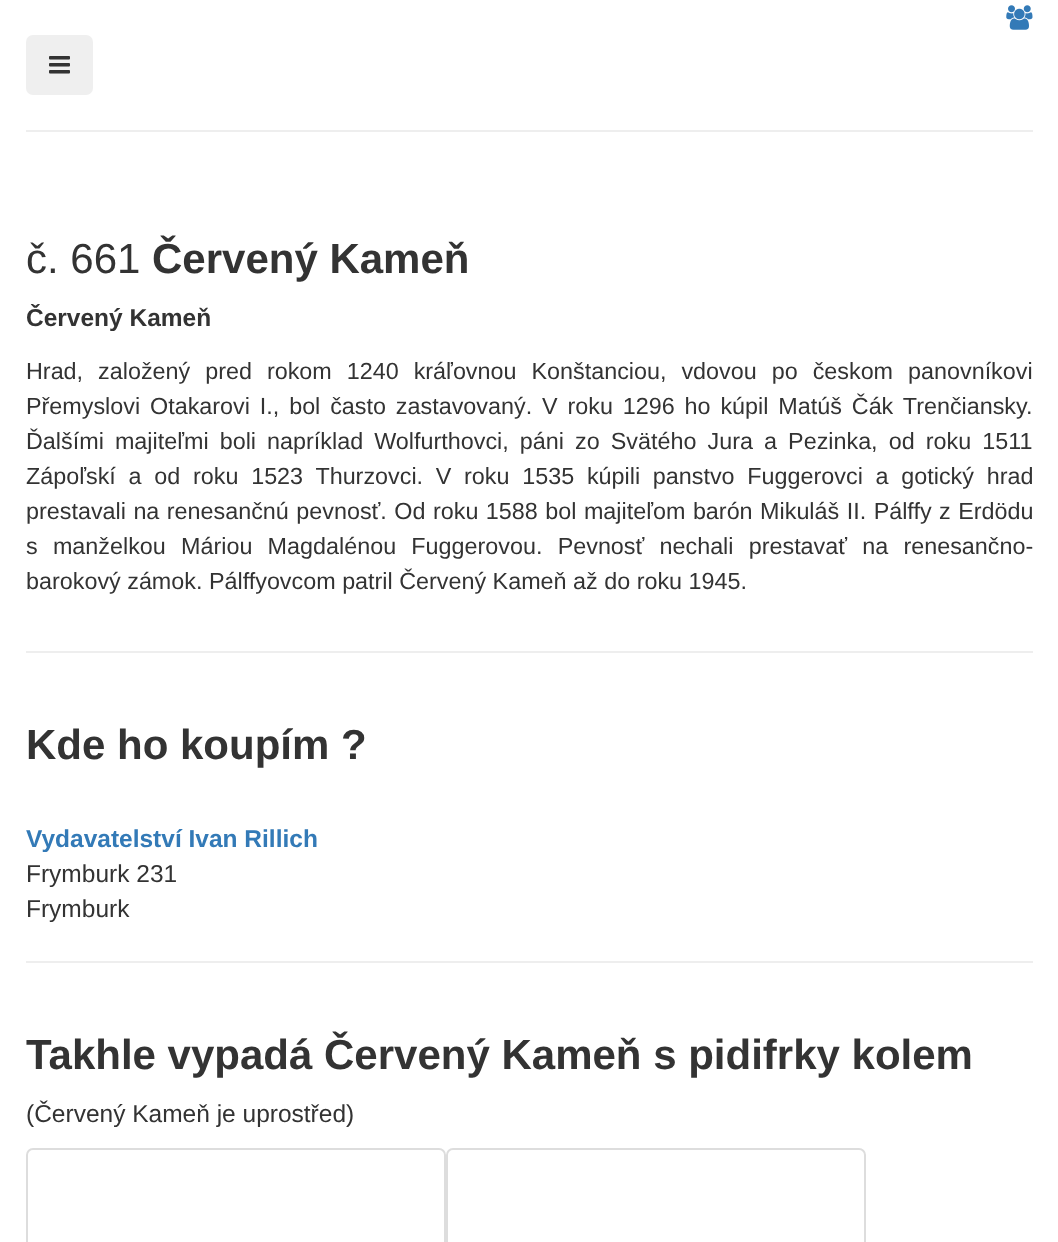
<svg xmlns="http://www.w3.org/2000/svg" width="1058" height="1242">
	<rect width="100%" height="100%" fill="#FFFFFF" />
	<image x="1006" y="5" width="27" height="25" href="assets/img1.png" />
	<rect x="26" y="35" width="67" height="60" rx="7" fill="#EFEFEF" />
	<image x="49" y="56" width="21" height="18" href="assets/img2.png" />
	<rect x="26" y="130" width="1007" height="2" fill="#EEEEEE" />
	<text x="26" y="273" font-family="Liberation Sans" font-size="42" fill="#333333">č. 661</text>
	<text x="152" y="273" font-family="Liberation Sans" font-size="42" font-weight="700" fill="#333333">Červený Kameň</text>
	<text x="26" y="326" font-family="Liberation Sans" font-size="24.5" font-weight="700" fill="#333333">Červený Kameň</text>
	<g font-family="Liberation Sans" font-size="23.35" fill="#333333">
		<text x="26" y="379" word-spacing="8.5">Hrad, založený pred rokom 1240 kráľovnou Konštanciou, vdovou po českom panovníkovi</text>
		<text x="26" y="414" word-spacing="3.4">Přemyslovi Otakarovi I., bol často zastavovaný. V roku 1296 ho kúpil Matúš Čák Trenčiansky.</text>
		<text x="26" y="449" word-spacing="4.6">Ďalšími majiteľmi boli napríklad Wolfurthovci, páni zo Svätého Jura a Pezinka, od roku 1511</text>
		<text x="26" y="484" word-spacing="6.25">Zápoľskí a od roku 1523 Thurzovci. V roku 1535 kúpili panstvo Fuggerovci a gotický hrad</text>
		<text x="26" y="519" word-spacing="1">prestavali na renesančnú pevnosť. Od roku 1588 bol majiteľom barón Mikuláš II. Pálffy z Erdödu</text>
		<text x="26" y="554" word-spacing="8.75">s manželkou Máriou Magdalénou Fuggerovou. Pevnosť nechali prestavať na renesančno-</text>
		<text x="26" y="589">barokový zámok. Pálffyovcom patril Červený Kameň až do roku 1945.</text>
	</g>
	<rect x="26" y="651" width="1007" height="2" fill="#EEEEEE" />
	<text x="26" y="759" font-family="Liberation Sans" font-size="42" font-weight="700" fill="#333333">Kde ho koupím ?</text>
	<text x="26" y="847" font-family="Liberation Sans" font-size="24.5" font-weight="700" fill="#337AB7">Vydavatelství Ivan Rillich</text>
	<g font-family="Liberation Sans" font-size="24.5" fill="#333333">
		<text x="26" y="882">Frymburk 231</text>
		<text x="26" y="917">Frymburk</text>
	</g>
	<rect x="26" y="961" width="1007" height="2" fill="#EEEEEE" />
	<text x="26" y="1069" font-family="Liberation Sans" font-size="42" font-weight="700" fill="#333333">Takhle vypadá Červený Kameň s pidifrky kolem</text>
	<text x="26" y="1122" font-family="Liberation Sans" font-size="24.5" fill="#333333">(Červený Kameň je uprostřed)</text>
	<rect x="27" y="1149" width="418" height="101" rx="6" fill="none" stroke="#DDDDDD" stroke-width="2" />
	<rect x="447" y="1149" width="418" height="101" rx="6" fill="none" stroke="#DDDDDD" stroke-width="2" />
</svg>
